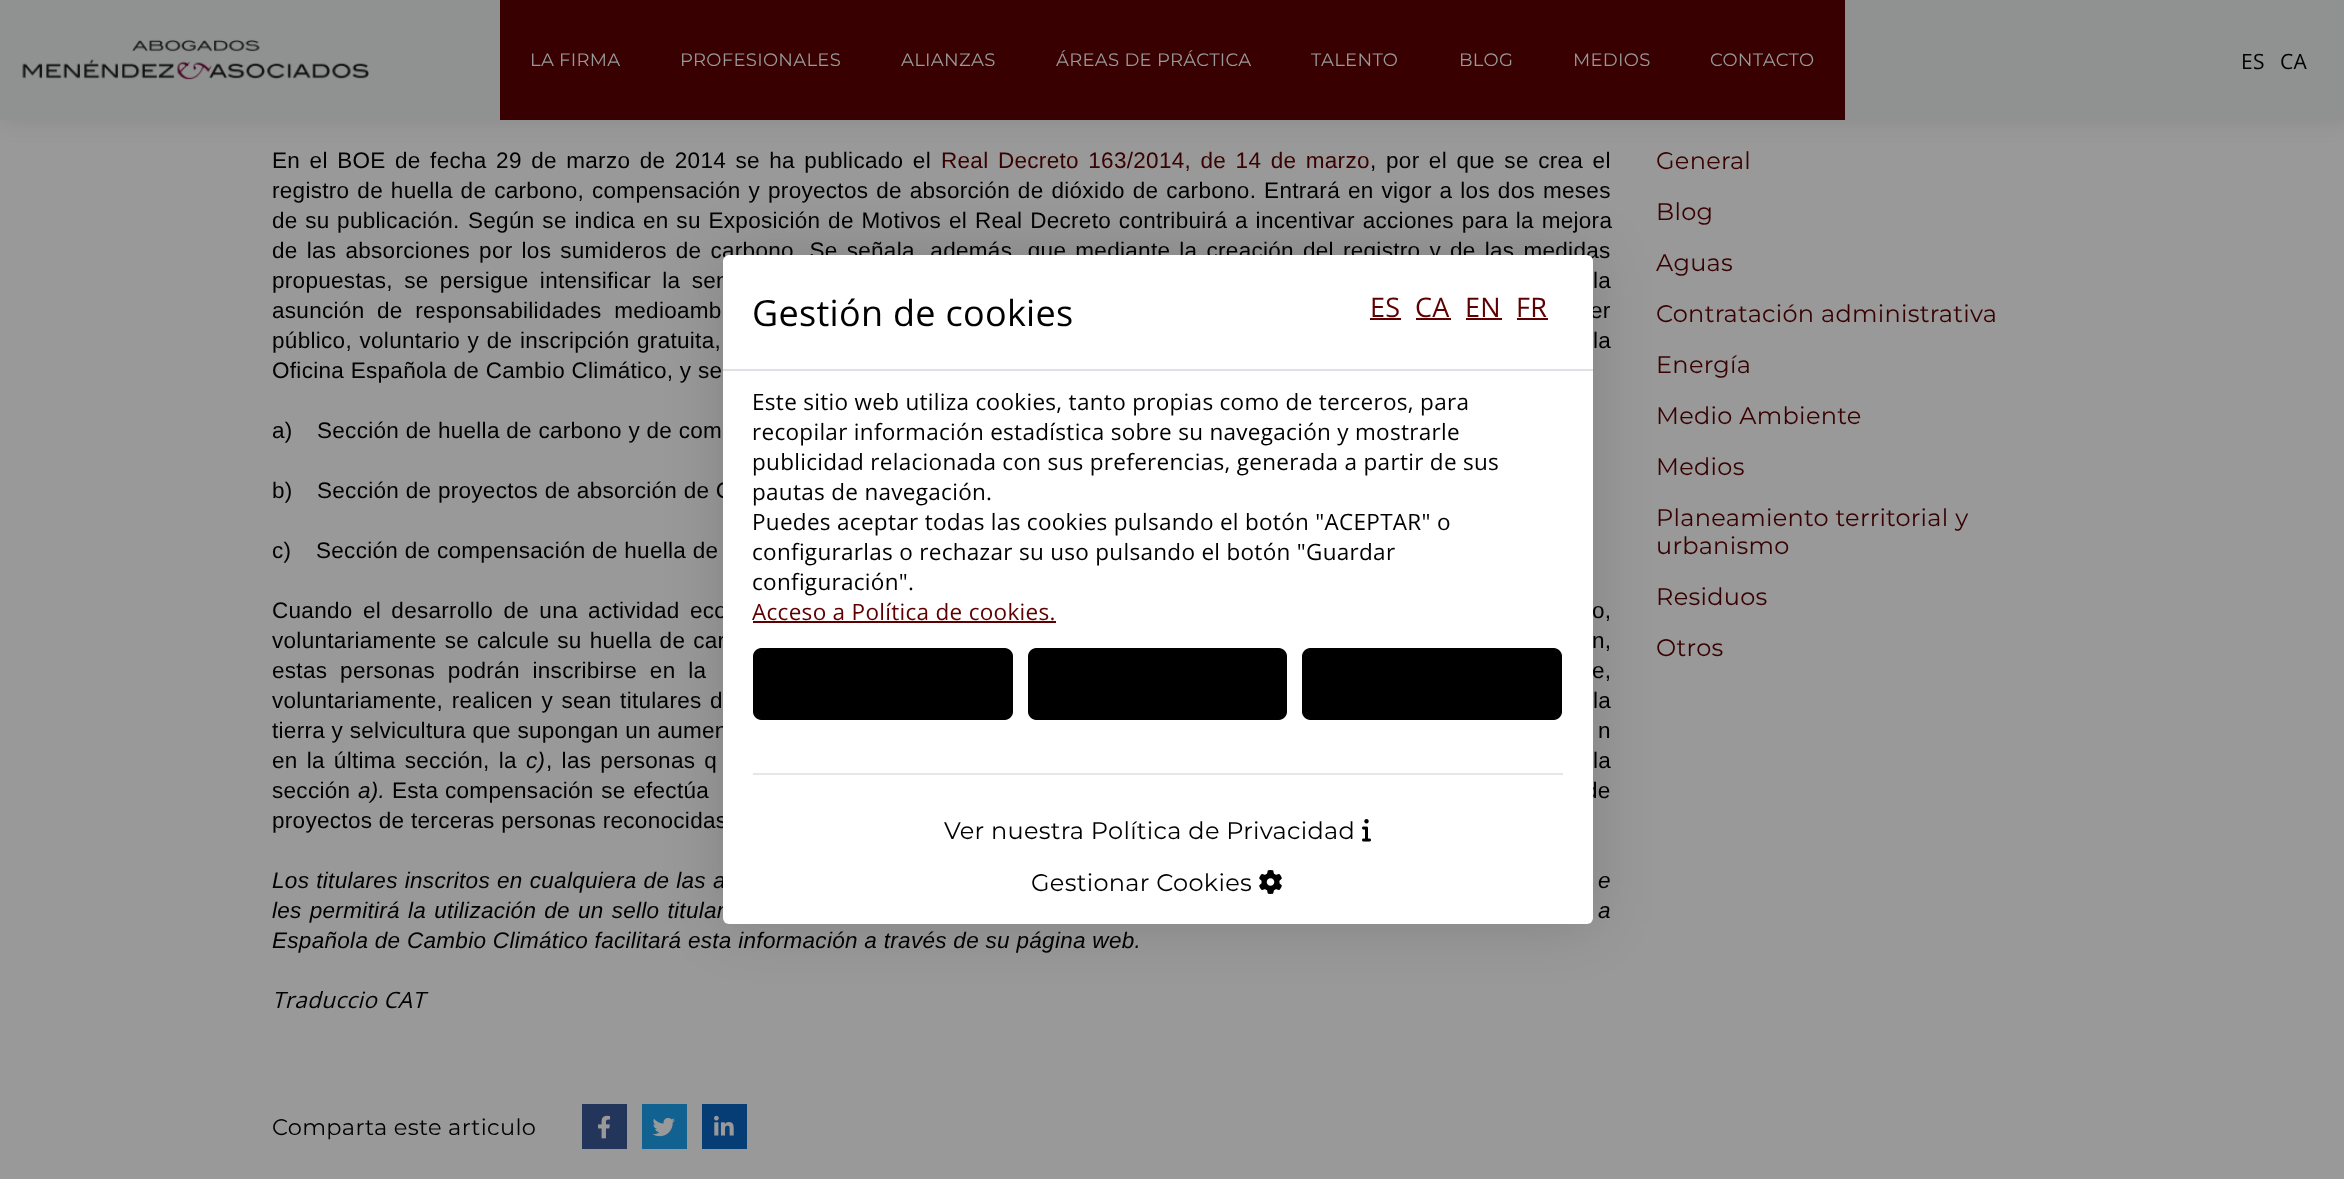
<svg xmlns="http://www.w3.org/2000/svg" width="2344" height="1179">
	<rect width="100%" height="100%" fill="#999999" />
	<rect x="0" y="3" width="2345" height="120" fill="#000000" fill-opacity="0.08" filter="blur(10.5px)" />
	<rect x="0" y="0" width="2344" height="120" fill="#909191" />
	<image x="22" y="39" width="347" height="41" href="assets/img1.png" />
	<rect x="500" y="0" width="1345" height="120" fill="#380001" />
	<g font-family="Montserrat" font-size="18" font-weight="100" letter-spacing="0.3" fill="#999999">
		<text x="530" y="66">LA FIRMA</text>
		<text x="680" y="66">PROFESIONALES</text>
		<text x="901" y="66">ALIANZAS</text>
		<text x="1056" y="66">ÁREAS DE PRÁCTICA</text>
		<text x="1311" y="66">TALENTO</text>
		<text x="1459" y="66">BLOG</text>
		<text x="1573" y="66">MEDIOS</text>
		<text x="1710" y="66">CONTACTO</text>
	</g>
	<g font-family="Open Sans" font-size="21" letter-spacing="0.3" fill="#000000">
		<text x="2241" y="69">ES</text>
		<text x="2280" y="69">CA</text>
	</g>
	<text x="272" y="168" word-spacing="2.9" font-family="Liberation Sans" font-size="22.5" letter-spacing="0.3" fill="#000000">En el BOE de fecha 29 de marzo de 2014 se ha publicado el</text>
	<text x="941" y="168" word-spacing="2.9" font-family="Liberation Sans" font-size="22.5" letter-spacing="0.3" fill="#380001">Real Decreto 163/2014, de 14 de marzo</text>
	<g font-family="Liberation Sans" font-size="22.5" letter-spacing="0.3" fill="#000000">
		<text x="1370" y="168" word-spacing="2.9">, por el que se crea el</text>
		<text x="272" y="198" word-spacing="1.35">registro de huella de carbono, compensación y proyectos de absorción de dióxido de carbono. Entrará en vigor a los dos meses</text>
		<text x="272" y="228" word-spacing="1">de su publicación.</text>
		<text x="468" y="228" word-spacing="1.25">Según se indica en su Exposición de Motivos el Real Decreto contribuirá a incentivar acciones para la mejora</text>
		<text x="272" y="258" word-spacing="2.5">de las absorciones por los sumideros de carbono. Se señala, además, que mediante la creación del registro y de las medidas</text>
		<text x="272" y="288" word-spacing="4.75">propuestas, se persigue intensificar la sen</text>
		<text x="1593" y="288" word-spacing="4.75">la</text>
		<text x="272" y="318" word-spacing="6">asunción de responsabilidades medioamb</text>
		<text x="1590" y="318" word-spacing="6">er</text>
		<text x="272" y="348" word-spacing="1">público, voluntario y de inscripción gratuita,</text>
		<text x="1593" y="348" word-spacing="1">la</text>
		<text x="272" y="378">Oficina Española de Cambio Climático, y se</text>
		<text x="272" y="438">a)</text>
		<text x="317" y="438">Sección de huella de carbono y de com</text>
		<text x="272" y="498">b)</text>
		<text x="317" y="498">Sección de proyectos de absorción de C</text>
		<text x="272" y="558">c)</text>
		<text x="316" y="558">Sección de compensación de huella de</text>
		<text x="272" y="618" word-spacing="3.75">Cuando el desarrollo de una actividad eco</text>
		<text x="1592" y="618" word-spacing="3.75">o,</text>
		<text x="272" y="648" word-spacing="1.5">voluntariamente se calcule su huella de car</text>
		<text x="1592" y="648" word-spacing="1.5">n,</text>
		<text x="272" y="678" word-spacing="6.25">estas personas podrán inscribirse en la</text>
		<text x="1592" y="678" word-spacing="6.25">e,</text>
		<text x="272" y="708" word-spacing="2">voluntariamente, realicen y sean titulares d</text>
		<text x="1593" y="708" word-spacing="2">la</text>
		<text x="272" y="738">tierra y selvicultura que supongan un aumen</text>
		<text x="1598" y="738">n</text>
		<text x="272" y="768" word-spacing="2.5">en la última sección, la</text>
	</g>
	<text x="526" y="768" font-family="Liberation Sans" font-size="22.5" font-style="italic" letter-spacing="0.3" fill="#000000">c)</text>
	<g font-family="Liberation Sans" font-size="22.5" letter-spacing="0.3" fill="#000000">
		<text x="546" y="768" word-spacing="2.5">, las personas q</text>
		<text x="1593" y="768" word-spacing="2.5">la</text>
		<text x="272" y="798">sección</text>
	</g>
	<text x="358" y="798" font-family="Liberation Sans" font-size="22.5" font-style="italic" letter-spacing="0.3" fill="#000000">a).</text>
	<g font-family="Liberation Sans" font-size="22.5" letter-spacing="0.3" fill="#000000">
		<text x="392" y="798">Esta</text>
		<text x="445" y="798" word-spacing="1">compensación se efectúa</text>
		<text x="1585" y="798" word-spacing="1">de</text>
		<text x="272" y="828">proyectos de terceras personas reconocidas</text>
	</g>
	<g font-family="Liberation Sans" font-size="22.5" font-style="italic" letter-spacing="0.3" fill="#000000">
		<text x="272" y="888" word-spacing="0.5">Los titulares inscritos en cualquiera de las a</text>
		<text x="1598" y="888" word-spacing="0.5">e</text>
		<text x="272" y="918" word-spacing="1.5">les permitirá la utilización de un sello titular</text>
		<text x="1598" y="918" word-spacing="1.5">a</text>
		<text x="272" y="948">Española de Cambio Climático facilitará esta información a través de su página web.</text>
	</g>
	<text x="272" y="1008" font-family="Open Sans" font-size="22.5" font-style="italic" letter-spacing="0.3" fill="#000000">Traduccio CAT</text>
	<text x="272" y="1135" font-family="Montserrat" font-size="22.5" font-weight="100" letter-spacing="0.3" fill="#000000">Comparta este articulo</text>
	<rect x="582" y="1104" width="45" height="45" fill="#23355B" />
	<image x="598" y="1115" width="13" height="24" href="assets/img2.png" />
	<rect x="642" y="1104" width="45" height="45" fill="#116191" />
	<image x="652" y="1117" width="23" height="20" href="assets/img3.png" />
	<rect x="702" y="1104" width="45" height="45" fill="#073D75" />
	<image x="714" y="1115" width="20" height="21" href="assets/img4.png" />
	<g font-family="Montserrat" font-size="24" font-weight="100" letter-spacing="0.3" fill="#380001">
		<text x="1656" y="169">General</text>
		<text x="1656" y="220">Blog</text>
		<text x="1656" y="271">Aguas</text>
		<text x="1656" y="322">Contratación administrativa</text>
		<text x="1656" y="373">Energía</text>
		<text x="1656" y="424">Medio Ambiente</text>
		<text x="1656" y="475">Medios</text>
		<text x="1656" y="526">Planeamiento territorial y</text>
		<text x="1656" y="554">urbanismo</text>
		<text x="1656" y="605">Residuos</text>
		<text x="1656" y="656">Otros</text>
	</g>
	<rect x="723" y="255" width="870" height="669" rx="6" fill="#000000" fill-opacity="0.15" filter="blur(30px)" />
	<rect x="723" y="255" width="870" height="669" rx="6" fill="#FFFFFF" />
	<rect x="723" y="369" width="870" height="2" fill="#DEE2E6" />
	<text x="752" y="326" font-family="Open Sans" font-size="36" letter-spacing="0.3" fill="#000000">Gestión de cookies</text>
	<text x="1370" y="317" font-family="Open Sans" font-size="27" letter-spacing="0.3" fill="#5E0001">ES</text>
	<rect x="1370" y="318" width="31" height="2" fill="#5E0001" />
	<text x="1415" y="317" font-family="Open Sans" font-size="27" letter-spacing="0.3" fill="#5E0001">CA</text>
	<rect x="1416" y="318" width="35" height="2" fill="#5E0001" />
	<text x="1465" y="317" font-family="Open Sans" font-size="27" letter-spacing="0.3" fill="#5E0001">EN</text>
	<rect x="1466" y="318" width="36" height="2" fill="#5E0001" />
	<text x="1516" y="317" font-family="Open Sans" font-size="27" letter-spacing="0.3" fill="#5E0001">FR</text>
	<rect x="1517" y="318" width="31" height="2" fill="#5E0001" />
	<g font-family="Open Sans" font-size="22.5" letter-spacing="0.3" fill="#000000">
		<text x="752" y="410">Este sitio web utiliza cookies, tanto propias como de terceros, para</text>
		<text x="752" y="440">recopilar información estadística sobre su navegación y mostrarle</text>
		<text x="752" y="470">publicidad relacionada con sus preferencias, generada a partir de sus</text>
		<text x="752" y="500">pautas de navegación.</text>
		<text x="752" y="530">Puedes aceptar todas las cookies pulsando el botón "ACEPTAR" o</text>
		<text x="752" y="560">configurarlas o rechazar su uso pulsando el botón "Guardar</text>
		<text x="752" y="590">configuración".</text>
	</g>
	<text x="752" y="620" font-family="Open Sans" font-size="22.5" letter-spacing="0.3" fill="#5E0001">Acceso a Política de cookies.</text>
	<rect x="753" y="621" width="303" height="2" fill="#5E0001" />
	<path d="M761 648H1005C1009 648 1013 652 1013 656V712C1013 716 1009 720 1005 720H761C757 720 753 716 753 712V656C753 652 757 648 761 648Z" fill="#000000" />
	<path d="M1036 648H1279C1283 648 1287 652 1287 656V712C1287 716 1283 720 1279 720H1036C1032 720 1028 716 1028 712V656C1028 652 1032 648 1036 648Z" fill="#000000" />
	<path d="M1310 648H1554C1558 648 1562 652 1562 656V712C1562 716 1558 720 1554 720H1310C1306 720 1302 716 1302 712V656C1302 652 1306 648 1310 648Z" fill="#000000" />
	<rect x="753" y="773" width="810" height="2" fill="#E6E6E6" />
	<text x="944" y="839" font-family="Montserrat" font-size="24" font-weight="100" letter-spacing="0.3" fill="#000000">Ver nuestra Política de Privacidad</text>
	<image x="1362" y="819" width="9" height="23" href="assets/img5.png" />
	<text x="1031" y="891" font-family="Montserrat" font-size="24" font-weight="100" letter-spacing="0.3" fill="#000000">Gestionar Cookies</text>
	<image x="1259" y="870" width="23" height="24" href="assets/img6.png" />
</svg>
